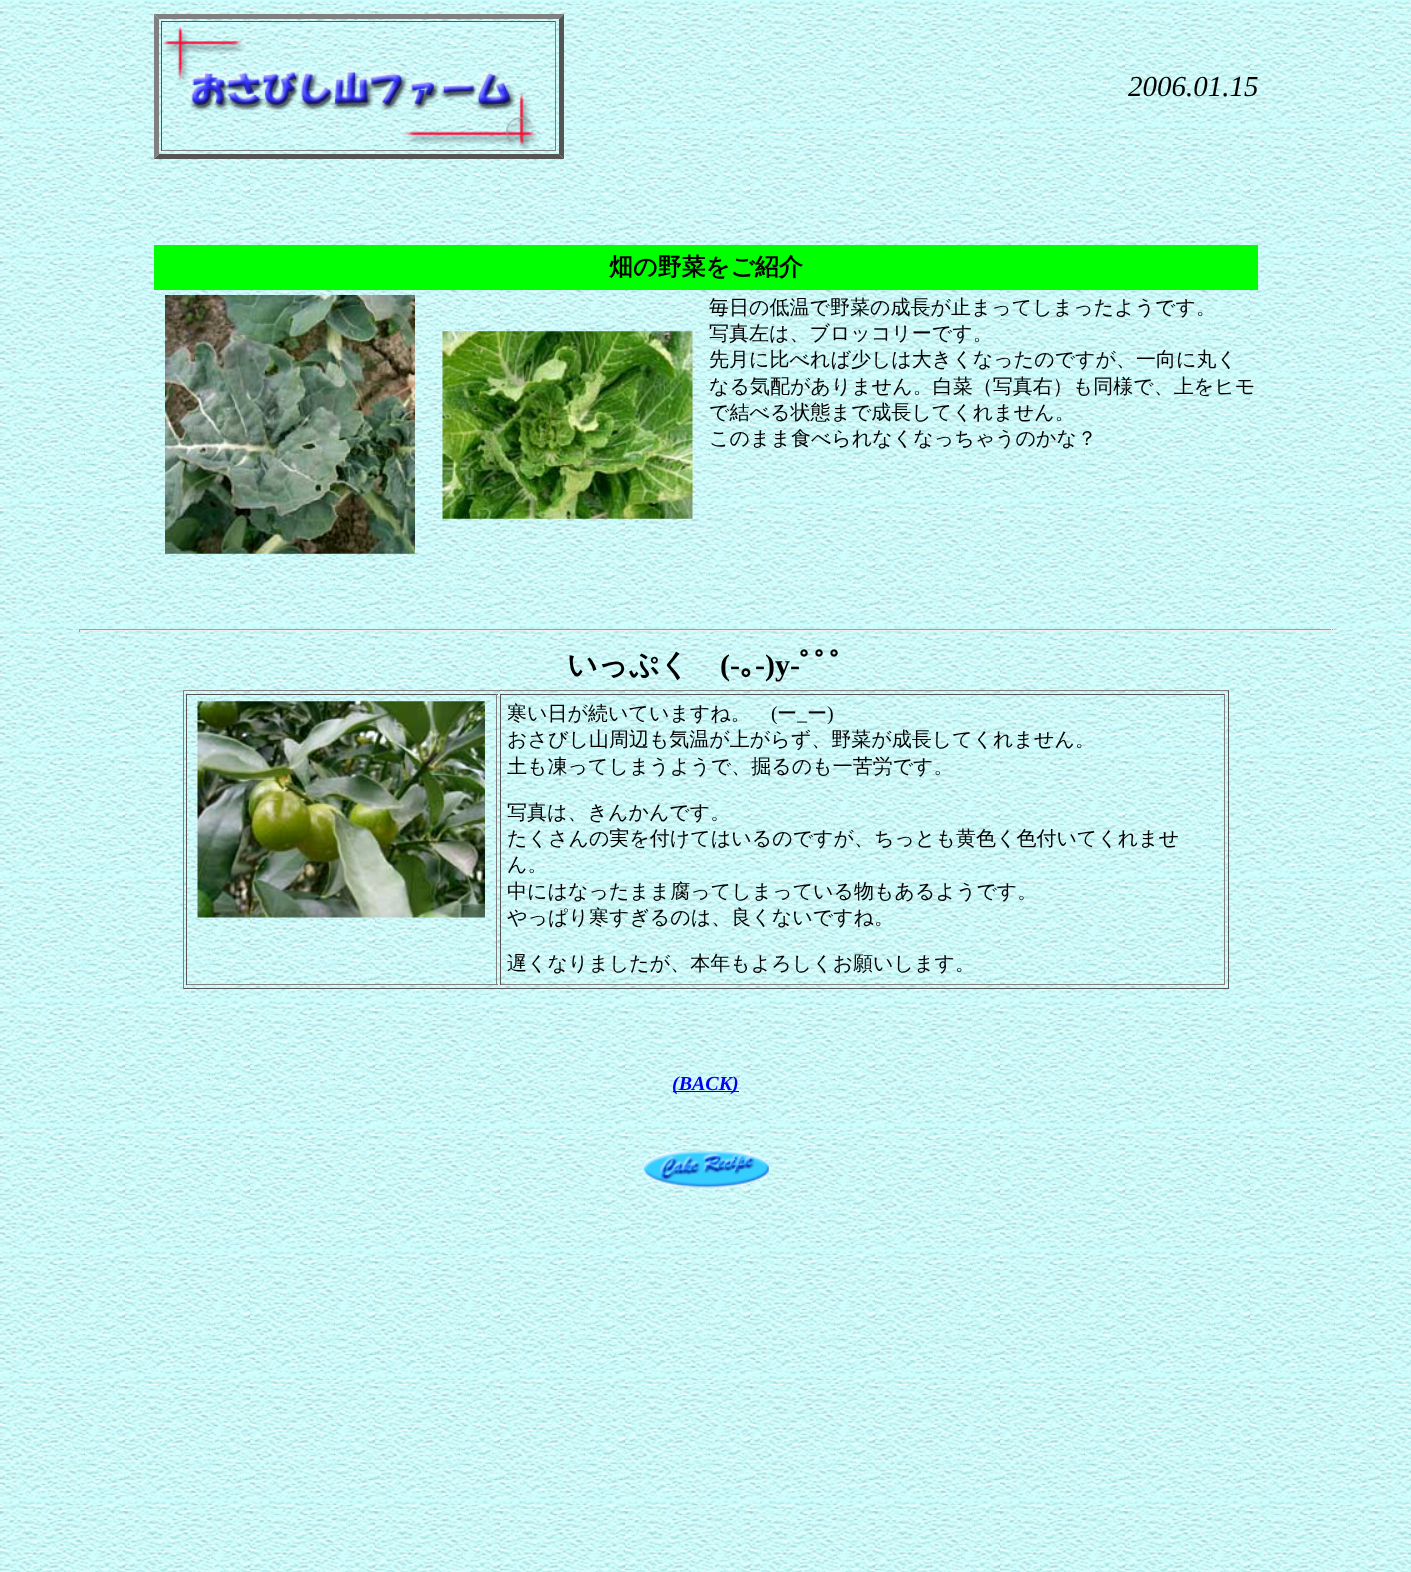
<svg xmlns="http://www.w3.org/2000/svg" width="1411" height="1572">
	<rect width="100%" height="100%" fill="#FFFFFF" />
	<image x="0" y="0" width="1411" height="1572" href="assets/img1.png" />
	<path d="M154 14H564L559 19H159Z" fill="#808080" />
	<path d="M564 14V159L559 154V19Z" fill="#555555" />
	<path d="M564 159H154L159 154H559Z" fill="#555555" />
	<path d="M154 159V14L159 19V154Z" fill="#808080" />
	<rect x="161" y="21" width="395" height="1" fill="#555555" />
	<rect x="555" y="21" width="1" height="130" fill="#808080" />
	<rect x="161" y="150" width="395" height="1" fill="#808080" />
	<rect x="161" y="21" width="1" height="130" fill="#555555" />
	<image x="163" y="23" width="376" height="126" href="assets/img2.png" />
	<text x="1128" y="96" font-family="Liberation Serif" font-size="29" font-style="italic" fill="#000000">2006.01.15</text>
	<rect x="154" y="245" width="1104" height="45" fill="#00FF00" />
	<text x="609" y="275" font-family="WenQuanYi Zen Hei" font-size="24" font-weight="700" fill="#000000">畑の野菜をご紹介</text>
	<image x="165" y="295" width="250" height="259" href="assets/img3.png" />
	<image x="442" y="331" width="251" height="188" href="assets/img4.png" />
	<g font-family="WenQuanYi Zen Hei" font-size="20" font-weight="500" fill="#000000">
		<text x="709" y="314">毎日の低温で野菜の成長が止まってしまったようです。</text>
		<text x="709" y="340">写真左は、ブロッコリーです。</text>
		<text x="709" y="366">先月に比べれば少しは大きくなったのですが、一向に丸く</text>
		<text x="709" y="393">なる気配がありません。白菜（写真右）も同様で、上をヒモ</text>
		<text x="709" y="419">で結べる状態まで成長してくれません。</text>
		<text x="709" y="445">このまま食べられなくなっちゃうのかな？</text>
	</g>
	<rect x="79" y="629" width="1254" height="1" fill="#9F9F9F" />
	<rect x="1331" y="629" width="1" height="3" fill="#EEEEEE" />
	<rect x="79" y="630" width="1254" height="1" fill="#EEEEEE" />
	<rect x="79" y="629" width="1" height="3" fill="#9F9F9F" />
	<text x="567" y="675" font-family="WenQuanYi Zen Hei" font-size="30" font-weight="700" fill="#000000">いっぷく</text>
	<text x="720" y="675" font-family="Liberation Serif" font-size="30" font-weight="700" fill="#000000">(-</text>
	<text x="740" y="675" font-family="IPAGothic" font-size="30" font-weight="700" fill="#000000">｡</text>
	<text x="755" y="675" font-family="Liberation Serif" font-size="30" font-weight="700" fill="#000000">-)y-</text>
	<text x="799" y="675" font-family="IPAGothic" font-size="30" font-weight="700" fill="#000000">ﾟﾟﾟ</text>
	<rect x="183" y="690" width="1046" height="1" fill="#808080" />
	<rect x="1228" y="690" width="1" height="299" fill="#555555" />
	<rect x="183" y="988" width="1046" height="1" fill="#555555" />
	<rect x="183" y="690" width="1" height="299" fill="#808080" />
	<rect x="186" y="694" width="312" height="1" fill="#555555" />
	<rect x="496" y="694" width="1" height="291" fill="#808080" />
	<rect x="186" y="984" width="312" height="1" fill="#808080" />
	<rect x="186" y="694" width="1" height="291" fill="#555555" />
	<image x="197" y="701" width="288" height="217" href="assets/img5.png" />
	<rect x="500" y="694" width="725" height="1" fill="#555555" />
	<rect x="1224" y="694" width="1" height="291" fill="#808080" />
	<rect x="500" y="984" width="725" height="1" fill="#808080" />
	<rect x="500" y="694" width="1" height="291" fill="#555555" />
	<text x="507" y="720" font-family="WenQuanYi Zen Hei" font-size="20" font-weight="500" fill="#000000">寒い日が続いていますね。</text>
	<text x="771" y="720" font-family="Liberation Serif" font-size="20" fill="#000000">(</text>
	<g font-family="WenQuanYi Zen Hei" font-size="20" font-weight="500" fill="#000000">
		<text x="777" y="720">ー</text>
		<text x="807" y="720">ー</text>
	</g>
	<g font-family="Liberation Serif" font-size="20" fill="#000000">
		<text x="827" y="720">)</text>
		<text x="797" y="720">_</text>
	</g>
	<g font-family="WenQuanYi Zen Hei" font-size="20" font-weight="500" fill="#000000">
		<text x="507" y="746">おさびし山周辺も気温が上がらず、野菜が成長してくれません。</text>
		<text x="507" y="773">土も凍ってしまうようで、掘るのも一苦労です。</text>
		<text x="507" y="819">写真は、きんかんです。</text>
		<text x="507" y="845">たくさんの実を付けてはいるのですが、ちっとも黄色く色付いてくれませ</text>
		<text x="507" y="871">ん。</text>
		<text x="507" y="898">中にはなったまま腐ってしまっている物もあるようです。</text>
		<text x="507" y="924">やっぱり寒すぎるのは、良くないですね。</text>
		<text x="507" y="970">遅くなりましたが、本年もよろしくお願いします。</text>
	</g>
	<rect x="673" y="1091" width="66" height="1" fill="#0000EE" />
	<text x="672" y="1090" font-family="Liberation Serif" font-size="20" font-weight="700" font-style="italic" fill="#0000EE">(BACK)</text>
	<image x="643" y="1151" width="126" height="37" href="assets/img6.png" />
</svg>
